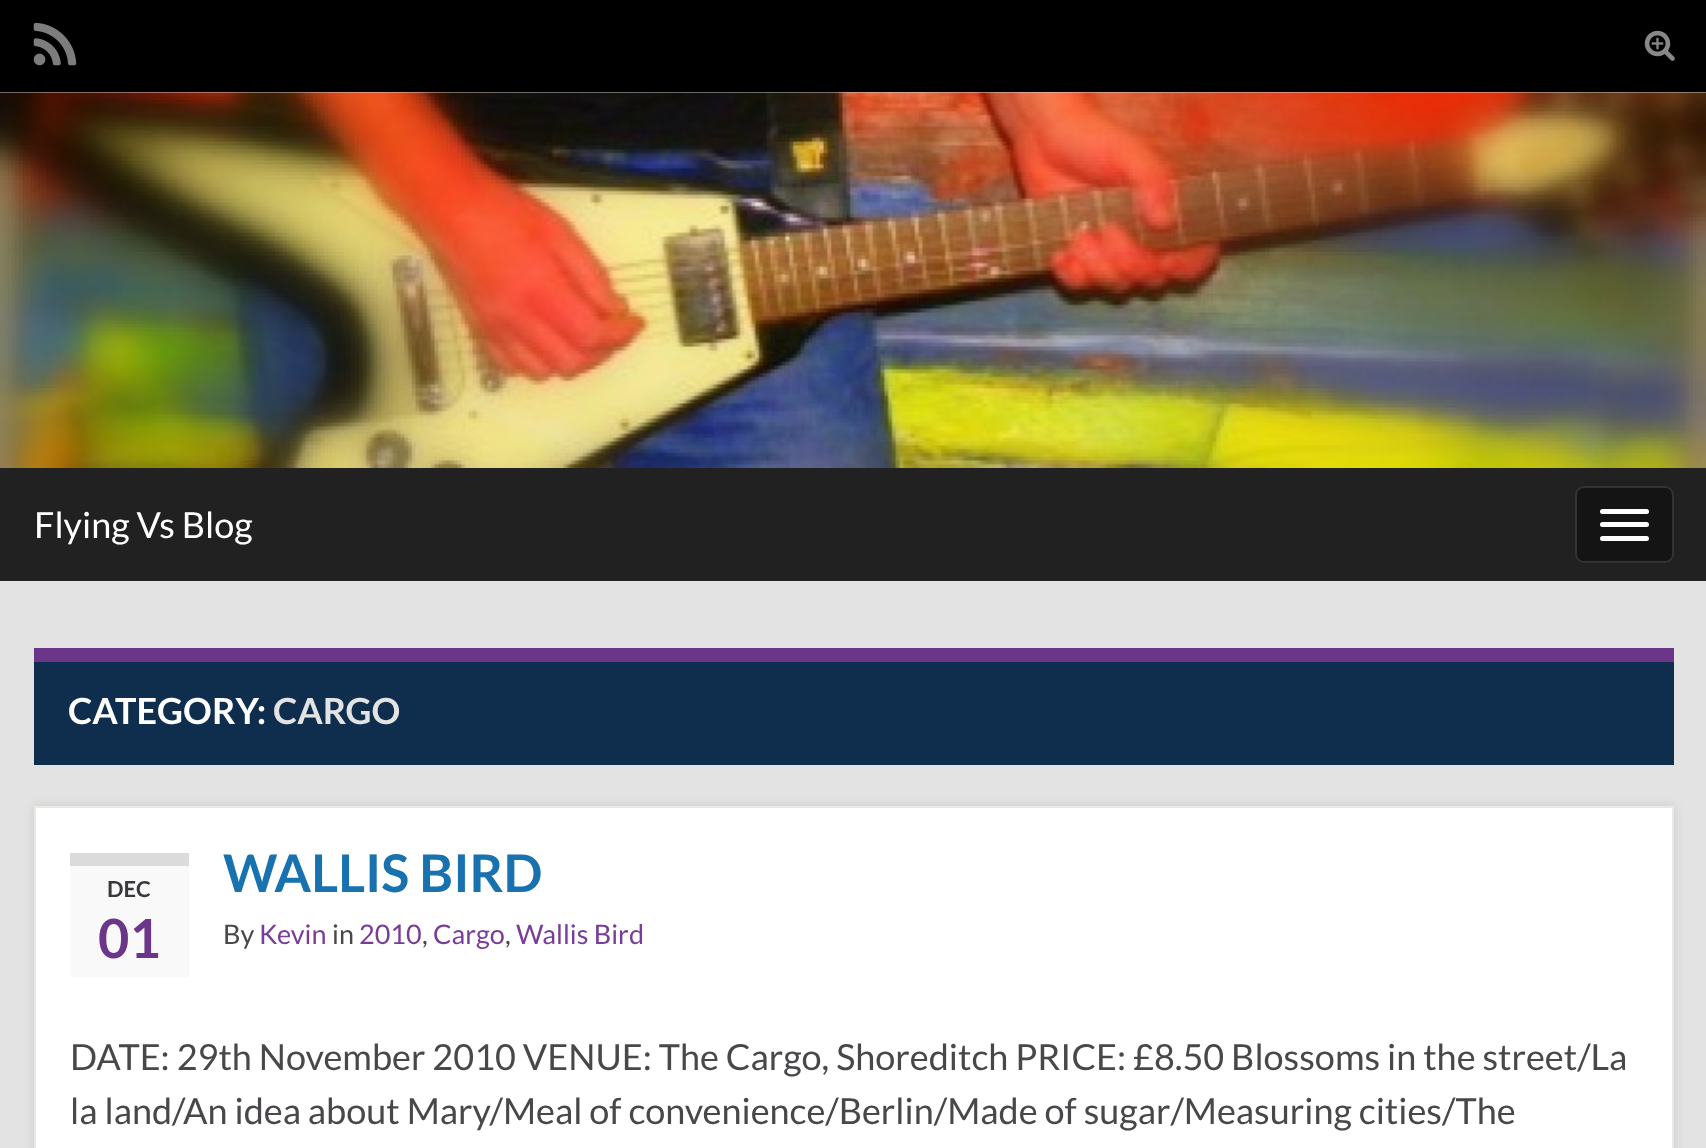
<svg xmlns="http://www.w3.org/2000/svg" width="1706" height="1148">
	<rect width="100%" height="100%" fill="#000000" />
	<image x="33" y="22" width="44" height="44" href="assets/img1.png" />
	<image x="1644" y="30" width="31" height="31" href="assets/img2.png" />
	<rect x="0" y="92" width="1706" height="1" fill="#E3E3E3" />
	<image x="0" y="92" width="1706" height="376" href="assets/img3.png" />
	<rect x="0" y="468" width="1706" height="113" fill="#212121" />
	<text x="34" y="538" font-family="Lato" font-size="36" fill="#FFFFFF">Flying Vs Blog</text>
	<rect x="1576" y="487" width="97" height="75" rx="8" fill="#141414" stroke="#333333" stroke-width="2" />
	<rect x="1600" y="509" width="49" height="5" rx="2.5" fill="#FFFFFF" />
	<rect x="1600" y="522" width="49" height="5" rx="2.5" fill="#FFFFFF" />
	<rect x="1600" y="536" width="49" height="5" rx="2.5" fill="#FFFFFF" />
	<rect x="0" y="581" width="1706" height="567" fill="#E3E3E3" />
	<rect x="34" y="662" width="1640" height="103" fill="#0F2D4D" />
	<rect x="34" y="648" width="1640" height="14" fill="#6B3589" />
	<text x="68" y="724" font-family="Lato" font-size="36" font-weight="700" fill="#FFFFFF">CATEGORY:</text>
	<text x="273" y="724" font-family="Lato" font-size="36" font-weight="700" fill="#E3E3E3">CARGO</text>
	<rect x="34" y="806" width="1640" height="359" fill="#000000" fill-opacity="0.1" filter="blur(5.5px)" />
	<rect x="35" y="807" width="1638" height="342" fill="#FFFFFF" stroke="#E9E8E3" stroke-width="2" />
	<text x="223" y="892" font-family="Lato" font-size="52" font-weight="700" fill="#1772AF">WALLIS BIRD</text>
	<rect x="70" y="866" width="119" height="111" fill="#F9F9F9" />
	<rect x="70" y="853" width="119" height="13" fill="#DBDBDB" />
	<text x="107" y="897" font-family="Lato" font-size="22" font-weight="700" fill="#3B383D">DEC</text>
	<text x="98" y="958" font-family="Lato" font-size="54" font-weight="700" fill="#6B3589">01</text>
	<text x="223" y="944" font-family="Lato" font-size="27" fill="#4A474B">By</text>
	<text x="259" y="944" font-family="Lato" font-size="27" fill="#783D98">Kevin</text>
	<text x="332" y="944" font-family="Lato" font-size="27" fill="#4A474B">in</text>
	<text x="359" y="944" font-family="Lato" font-size="27" fill="#783D98">2010</text>
	<text x="422" y="944" font-family="Lato" font-size="27" fill="#4A474B">,</text>
	<text x="433" y="944" font-family="Lato" font-size="27" fill="#783D98">Cargo</text>
	<text x="505" y="944" font-family="Lato" font-size="27" fill="#4A474B">,</text>
	<text x="516" y="944" font-family="Lato" font-size="27" fill="#783D98">Wallis Bird</text>
	<g font-family="Lato" font-size="36" fill="#4A474B">
		<text x="70" y="1070">DATE: 29th November 2010 VENUE: The Cargo, Shoreditch PRICE: £8.50 Blossoms in the street/La</text>
		<text x="70" y="1124">la land/An idea about Mary/Meal of convenience/Berlin/Made of sugar/Measuring cities/The</text>
	</g>
</svg>
